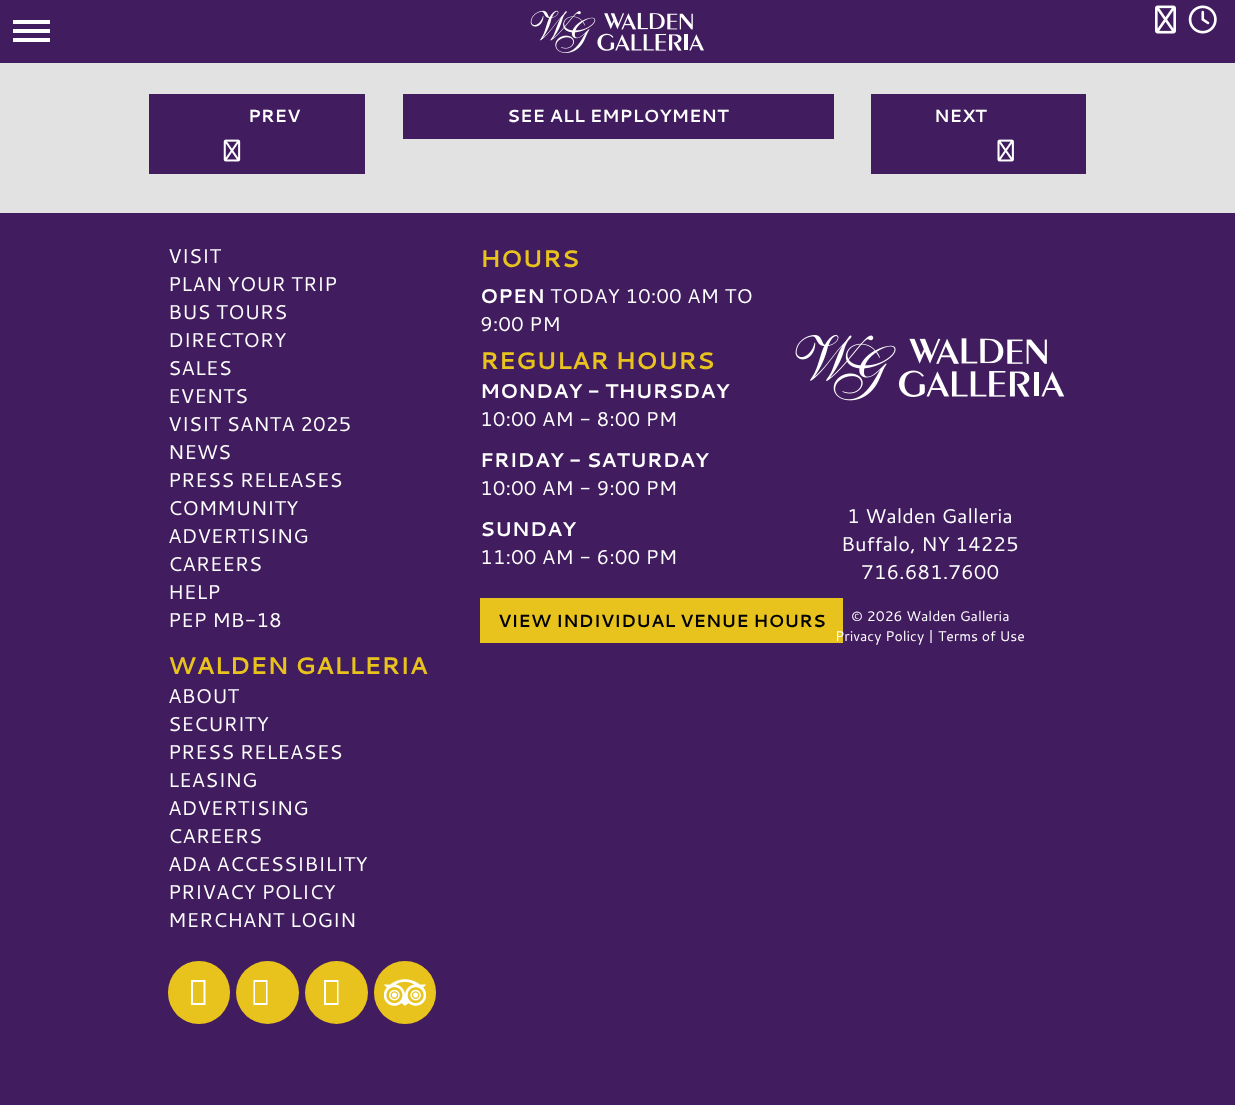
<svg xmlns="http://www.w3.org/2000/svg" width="1235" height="1105">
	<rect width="100%" height="100%" fill="#E2E2E2" />
	<rect x="0" y="0" width="1235" height="63" fill="#411C5E" />
	<rect x="13" y="29" width="37" height="4" fill="#FFFFFF" />
	<rect x="13" y="20" width="37" height="4" fill="#FFFFFF" />
	<rect x="13" y="38" width="37" height="4" fill="#FFFFFF" />
	<image x="530" y="10" width="174" height="43" href="assets/img1.png" />
	<image x="1155" y="5" width="21" height="29" href="assets/img2.png" />
	<image x="1188" y="5" width="29" height="29" href="assets/img3.png" />
	<rect x="149" y="94" width="216" height="80" fill="#411C5E" />
	<text x="248" y="122" font-family="Cantarell" font-size="17.5" font-weight="700" fill="#FFFFFF">PREV</text>
	<image x="223" y="139" width="18" height="23" href="assets/img4.png" />
	<rect x="403" y="94" width="431" height="45" fill="#411C5E" />
	<text x="507" y="122" font-family="Cantarell" font-size="17.5" font-weight="700" fill="#FFFFFF">SEE ALL EMPLOYMENT</text>
	<rect x="871" y="94" width="215" height="80" fill="#411C5E" />
	<text x="934" y="122" font-family="Cantarell" font-size="17.5" font-weight="700" fill="#FFFFFF">NEXT</text>
	<image x="997" y="139" width="17" height="23" href="assets/img5.png" />
	<rect x="0" y="213" width="1235" height="892" fill="#411C5E" />
	<g font-family="Cantarell" font-size="20" fill="#FFFFFF">
		<text x="168" y="263">VISIT</text>
		<text x="168" y="291">PLAN YOUR TRIP</text>
		<text x="168" y="319">BUS TOURS</text>
		<text x="168" y="347">DIRECTORY</text>
		<text x="168" y="375">SALES</text>
		<text x="168" y="403">EVENTS</text>
		<text x="168" y="431">VISIT SANTA 2025</text>
		<text x="168" y="459">NEWS</text>
		<text x="168" y="487">PRESS RELEASES</text>
		<text x="168" y="515">COMMUNITY</text>
		<text x="168" y="543">ADVERTISING</text>
		<text x="168" y="571">CAREERS</text>
		<text x="168" y="599">HELP</text>
		<text x="168" y="627">PEP MB-18</text>
	</g>
	<text x="168" y="674" font-family="Cantarell" font-size="24" font-weight="700" fill="#E8C31D">WALDEN GALLERIA</text>
	<g font-family="Cantarell" font-size="20" fill="#FFFFFF">
		<text x="168" y="703">ABOUT</text>
		<text x="168" y="731">SECURITY</text>
		<text x="168" y="759">PRESS RELEASES</text>
		<text x="168" y="787">LEASING</text>
		<text x="168" y="815">ADVERTISING</text>
		<text x="168" y="843">CAREERS</text>
		<text x="168" y="871">ADA ACCESSIBILITY</text>
		<text x="168" y="899">PRIVACY POLICY</text>
		<text x="168" y="927">MERCHANT LOGIN</text>
	</g>
	<rect x="168" y="961" width="62" height="63" rx="31" fill="#E8C31D" />
	<path d="M191 1005V980H205.5V1005ZM193 1003H203.5V982H193Z" fill="#FFFFFF" />
	<circle cx="267.5" cy="992.5" r="31.5" fill="#E8C31D" />
	<path d="M253.5 1005V980H267.5V1005ZM255 1003H266V982H255Z" fill="#FFFFFF" />
	<circle cx="336.5" cy="992.5" r="31.5" fill="#E8C31D" />
	<path d="M324 1005V980H338.5V1005ZM326 1003H337V982H326Z" fill="#FFFFFF" />
	<rect x="374" y="961" width="62" height="63" rx="31" fill="#E8C31D" />
	<image x="384" y="979" width="42" height="27" href="assets/img6.png" />
	<text x="480" y="267" font-family="Cantarell" font-size="24" font-weight="700" fill="#E8C31D">HOURS</text>
	<text x="480" y="303" font-family="Cantarell" font-size="20" font-weight="700" fill="#FFFFFF">OPEN</text>
	<g font-family="Cantarell" font-size="20" fill="#FFFFFF">
		<text x="550" y="303">TODAY 10:00 AM TO</text>
		<text x="480" y="331">9:00 PM</text>
	</g>
	<text x="480" y="369" font-family="Cantarell" font-size="24" font-weight="700" fill="#E8C31D">REGULAR HOURS</text>
	<text x="480" y="398" font-family="Cantarell" font-size="20" font-weight="700" fill="#FFFFFF">MONDAY - THURSDAY</text>
	<text x="480" y="426" font-family="Cantarell" font-size="20" fill="#FFFFFF">10:00 AM - 8:00 PM</text>
	<text x="480" y="467" font-family="Cantarell" font-size="20" font-weight="700" fill="#FFFFFF">FRIDAY - SATURDAY</text>
	<text x="480" y="495" font-family="Cantarell" font-size="20" fill="#FFFFFF">10:00 AM - 9:00 PM</text>
	<text x="480" y="536" font-family="Cantarell" font-size="20" font-weight="700" fill="#FFFFFF">SUNDAY</text>
	<text x="480" y="564" font-family="Cantarell" font-size="20" fill="#FFFFFF">11:00 AM - 6:00 PM</text>
	<rect x="480" y="598" width="363" height="45" fill="#E8C31D" />
	<text x="498" y="627" font-family="Cantarell" font-size="17.5" font-weight="700" fill="#000000">VIEW INDIVIDUAL VENUE HOURS</text>
	<image x="795" y="335" width="270" height="66" href="assets/img7.png" />
	<g font-family="Cantarell" font-size="20" fill="#FFFFFF">
		<text x="847" y="523">1 Walden Galleria</text>
		<text x="841" y="551">Buffalo, NY 14225</text>
		<text x="861" y="579">716.681.7600</text>
	</g>
	<g font-family="Cantarell" font-size="14" fill="#FFFFFF">
		<text x="851" y="621">© 2026 Walden Galleria</text>
		<text x="835" y="641">Privacy Policy | Terms of Use</text>
	</g>
</svg>
